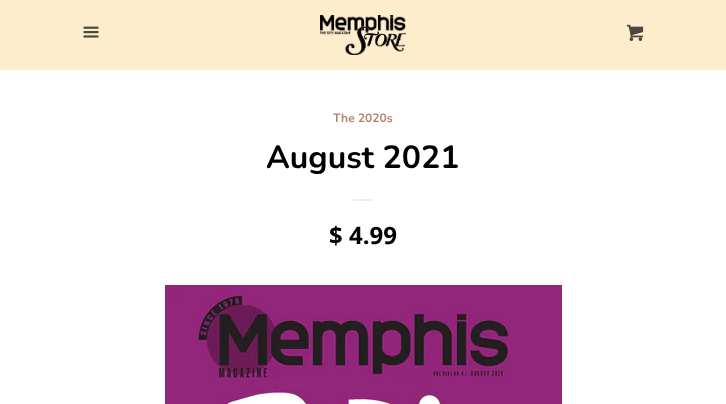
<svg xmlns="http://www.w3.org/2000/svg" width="726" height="404">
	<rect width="100%" height="100%" fill="#FFFFFF" />
	<rect x="0" y="0" width="726" height="70" fill="#FDEDCD" />
	<image x="83" y="26" width="16" height="12" href="assets/img1.png" />
	<image x="320" y="15" width="86" height="40" href="assets/img2.png" />
	<image x="626" y="24" width="18" height="17" href="assets/img3.png" />
	<text x="333" y="122" font-family="Nunito" font-size="12" font-weight="200" fill="#B58270">The 2020s</text>
	<text x="266" y="168" font-family="Nunito" font-size="32" font-weight="200" fill="#000000">August 2021</text>
	<rect x="353" y="199" width="20" height="2" fill="#F5EAE7" />
	<text x="329" y="244" font-family="Open Sans" font-size="24" font-weight="700" fill="#000000">$ 4.99</text>
	<image x="165" y="285" width="397" height="119" href="assets/img4.png" />
</svg>
